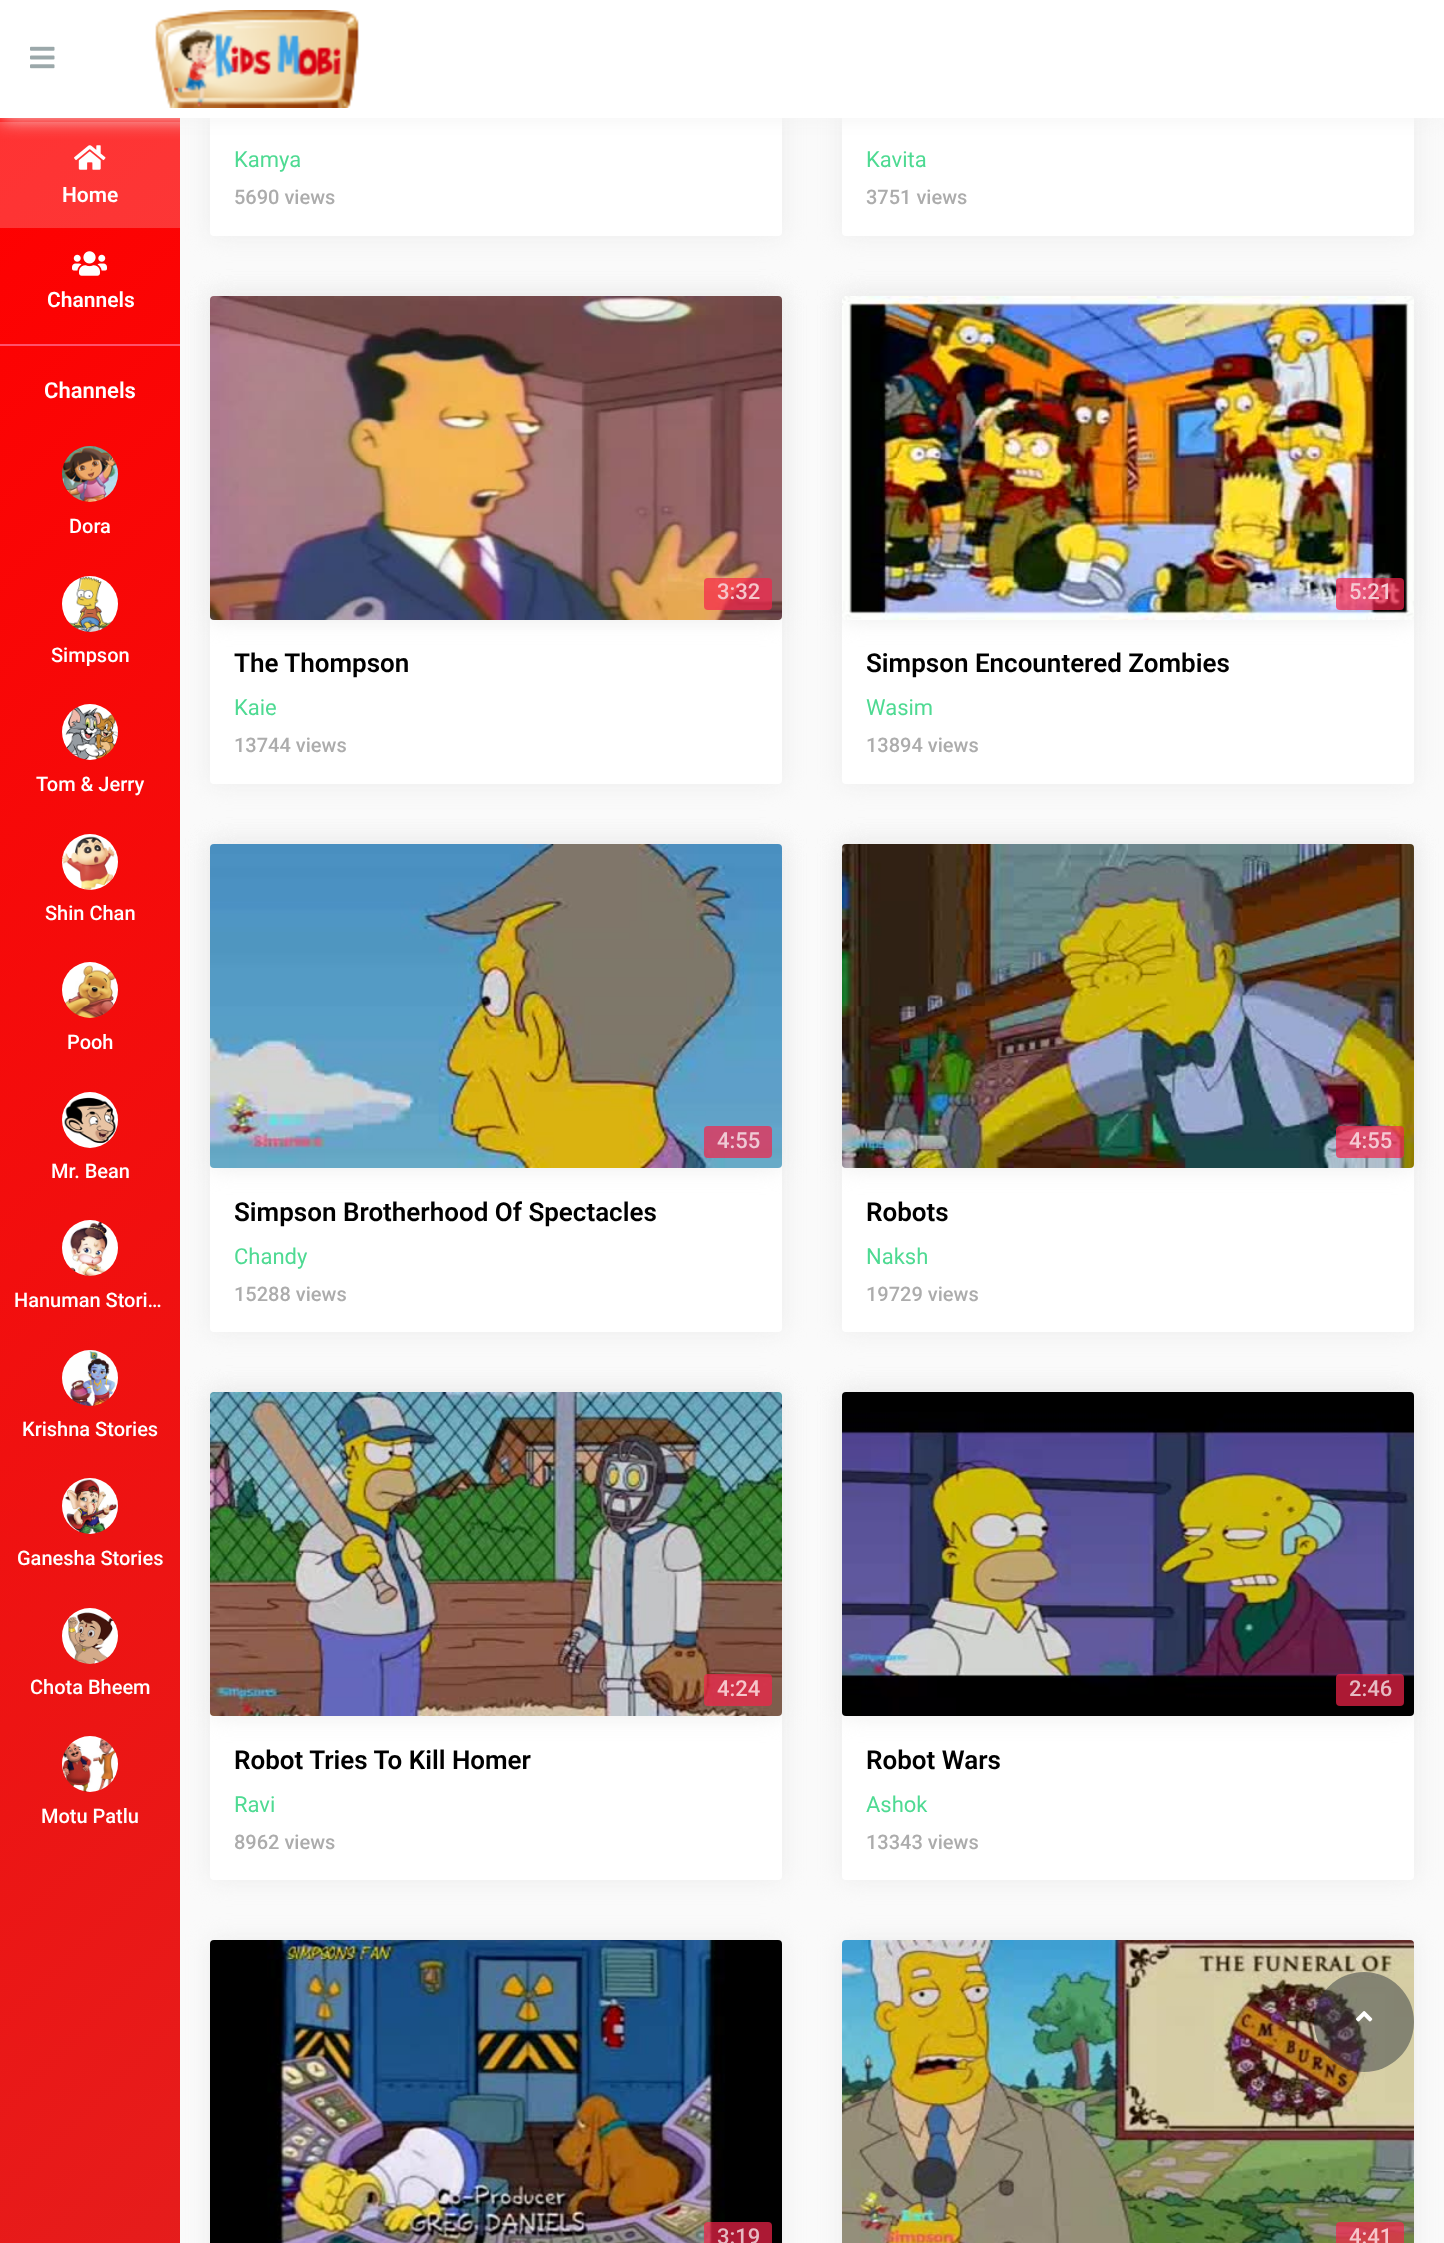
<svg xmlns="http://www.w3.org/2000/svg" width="1444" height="2243">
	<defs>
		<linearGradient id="g1" gradientUnits="userSpaceOnUse" x1="-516" y1="634" x2="696" y2="1846"><stop offset="0" stop-color="#FF0000" /><stop offset="1" stop-color="#E41E1D" /></linearGradient>
		<linearGradient id="g2" gradientUnits="userSpaceOnUse" x1="-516" y1="634" x2="696" y2="1846"><stop offset="0" stop-color="#FF3333" /><stop offset="1" stop-color="#E94B4A" /></linearGradient>
	</defs>
	<rect width="100%" height="100%" fill="#FAFAFA" />
	<rect x="210" y="-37" width="572" height="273" rx="4" fill="#ECECEC" filter="blur(11px)" />
	<rect x="210" y="296" width="572" height="488" rx="4" fill="#ECECEC" filter="blur(11px)" />
	<rect x="210" y="296" width="572" height="488" rx="4" fill="#FFFFFF" />
	<rect x="210" y="296" width="572" height="324" rx="4" fill="#ECECEC" filter="blur(11px)" />
	<rect x="210" y="844" width="572" height="488" rx="4" fill="#ECECEC" filter="blur(11px)" />
	<rect x="210" y="844" width="572" height="488" rx="4" fill="#FFFFFF" />
	<rect x="210" y="844" width="572" height="324" rx="4" fill="#ECECEC" filter="blur(11px)" />
	<rect x="210" y="1392" width="572" height="488" rx="4" fill="#ECECEC" filter="blur(11px)" />
	<rect x="210" y="1392" width="572" height="488" rx="4" fill="#FFFFFF" />
	<rect x="210" y="1392" width="572" height="324" rx="4" fill="#ECECEC" filter="blur(11px)" />
	<rect x="210" y="1940" width="572" height="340" rx="4" fill="#ECECEC" filter="blur(11px)" />
	<rect x="0" y="118" width="180" height="2125" fill="url(#g1)" />
	<rect x="0" y="122" width="180" height="106" fill="url(#g2)" />
	<image x="74" y="145" width="32" height="25" href="assets/img3.png" />
	<rect x="210" y="-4" width="572" height="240" rx="4" fill="#FFFFFF" />
	<rect x="842" y="-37" width="572" height="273" rx="4" fill="#ECECEC" filter="blur(11px)" />
	<rect x="842" y="-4" width="572" height="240" rx="4" fill="#FFFFFF" />
	<rect x="0" y="0" width="1444" height="118" fill="#F2F2F2" filter="blur(10px)" />
	<rect x="0" y="0" width="1444" height="118" fill="#FFFFFF" />
	<image x="30" y="46" width="25" height="23" href="assets/img1.png" />
	<image x="155" y="10" width="204" height="98" href="assets/img2.png" />
	<text x="62" y="202" font-family="Roboto" font-size="21" font-weight="600" fill="#FFFFFF">Home</text>
	<image x="72" y="251" width="35" height="25" href="assets/img4.png" />
	<text x="47" y="307" font-family="Roboto" font-size="21" font-weight="600" fill="#FFFFFF">Channels</text>
	<rect x="0" y="344" width="180" height="2" fill="#FF516B" />
	<text x="44" y="398" font-family="Roboto" font-size="22" font-weight="600" fill="#FFFFFF">Channels</text>
	<image x="62" y="446" width="56" height="56" href="assets/img5.png" />
	<text x="69" y="533" font-family="Roboto" font-size="20" font-weight="500" fill="#FFFFFF">Dora</text>
	<image x="62" y="576" width="56" height="56" href="assets/img6.png" />
	<text x="51" y="662" font-family="Roboto" font-size="20" font-weight="500" fill="#FFFFFF">Simpson</text>
	<image x="62" y="704" width="56" height="56" href="assets/img7.png" />
	<text x="36" y="791" font-family="Roboto" font-size="20" font-weight="500" fill="#FFFFFF">Tom &amp; Jerry</text>
	<image x="62" y="834" width="56" height="56" href="assets/img8.png" />
	<text x="45" y="920" font-family="Roboto" font-size="20" font-weight="500" fill="#FFFFFF">Shin Chan</text>
	<image x="62" y="962" width="56" height="56" href="assets/img9.png" />
	<text x="67" y="1049" font-family="Roboto" font-size="20" font-weight="500" fill="#FFFFFF">Pooh</text>
	<image x="62" y="1092" width="56" height="56" href="assets/img10.png" />
	<text x="51" y="1178" font-family="Roboto" font-size="20" font-weight="500" fill="#FFFFFF">Mr. Bean</text>
	<image x="62" y="1220" width="56" height="56" href="assets/img11.png" />
	<text x="14" y="1307" font-family="Roboto" font-size="20" font-weight="500" fill="#FFFFFF">Hanuman Stori…</text>
	<image x="62" y="1350" width="56" height="56" href="assets/img12.png" />
	<text x="22" y="1436" font-family="Roboto" font-size="20" font-weight="500" fill="#FFFFFF">Krishna Stories</text>
	<image x="62" y="1478" width="56" height="56" href="assets/img13.png" />
	<text x="17" y="1565" font-family="Roboto" font-size="20" font-weight="500" fill="#FFFFFF">Ganesha Stories</text>
	<image x="62" y="1608" width="56" height="56" href="assets/img14.png" />
	<text x="30" y="1694" font-family="Roboto" font-size="20" font-weight="500" fill="#FFFFFF">Chota Bheem</text>
	<image x="62" y="1736" width="56" height="56" href="assets/img15.png" />
	<text x="41" y="1823" font-family="Roboto" font-size="20" font-weight="500" fill="#FFFFFF">Motu Patlu</text>
	<text x="234" y="167" font-family="Roboto" font-size="22" fill="#4EDA92">Kamya</text>
	<text x="234" y="204" font-family="Roboto" font-size="20" font-weight="500" fill="#ACACAC">5690 views</text>
	<text x="866" y="167" font-family="Roboto" font-size="22" fill="#4EDA92">Kavita</text>
	<text x="866" y="204" font-family="Roboto" font-size="20" font-weight="500" fill="#ACACAC">3751 views</text>
	<image x="210" y="296" width="572" height="324" href="assets/img16.png" />
	<rect x="704" y="578" width="68" height="32" rx="4" fill="#F5234A" fill-opacity="0.7" />
	<text x="717" y="599" font-family="Roboto" font-size="22" font-weight="500" fill="#F6C5CA">3:32</text>
	<text x="234" y="672" font-family="Roboto" font-size="26" font-weight="600" fill="#000000">The Thompson</text>
	<text x="234" y="715" font-family="Roboto" font-size="22" fill="#4EDA92">Kaie</text>
	<text x="234" y="752" font-family="Roboto" font-size="20" font-weight="500" fill="#ACACAC">13744 views</text>
	<rect x="842" y="296" width="572" height="488" rx="4" fill="#ECECEC" filter="blur(11px)" />
	<rect x="842" y="296" width="572" height="488" rx="4" fill="#FFFFFF" />
	<rect x="842" y="296" width="572" height="324" rx="4" fill="#ECECEC" filter="blur(11px)" />
	<image x="842" y="296" width="572" height="324" href="assets/img17.png" />
	<rect x="1336" y="578" width="68" height="32" rx="4" fill="#F5234A" fill-opacity="0.7" />
	<text x="1349" y="599" font-family="Roboto" font-size="22" font-weight="500" fill="#F5C9D3">5:21</text>
	<text x="866" y="672" font-family="Roboto" font-size="26" font-weight="600" fill="#000000">Simpson Encountered Zombies</text>
	<text x="866" y="715" font-family="Roboto" font-size="22" fill="#4EDA92">Wasim</text>
	<text x="866" y="752" font-family="Roboto" font-size="20" font-weight="500" fill="#ACACAC">13894 views</text>
	<image x="210" y="844" width="572" height="324" href="assets/img18.png" />
	<rect x="704" y="1126" width="68" height="32" rx="4" fill="#F5234A" fill-opacity="0.7" />
	<text x="717" y="1148" font-family="Roboto" font-size="22" font-weight="500" fill="#EFC9D4">4:55</text>
	<text x="234" y="1221" font-family="Roboto" font-size="26" font-weight="600" fill="#000000">Simpson Brotherhood Of Spectacles</text>
	<text x="234" y="1264" font-family="Roboto" font-size="22" fill="#4EDA92">Chandy</text>
	<text x="234" y="1301" font-family="Roboto" font-size="20" font-weight="500" fill="#ACACAC">15288 views</text>
	<rect x="842" y="844" width="572" height="488" rx="4" fill="#ECECEC" filter="blur(11px)" />
	<rect x="842" y="844" width="572" height="488" rx="4" fill="#FFFFFF" />
	<rect x="842" y="844" width="572" height="324" rx="4" fill="#ECECEC" filter="blur(11px)" />
	<image x="842" y="844" width="572" height="324" href="assets/img19.png" />
	<rect x="1336" y="1126" width="68" height="32" rx="4" fill="#F5234A" fill-opacity="0.7" />
	<text x="1349" y="1148" font-family="Roboto" font-size="22" font-weight="500" fill="#F5C9D3">4:55</text>
	<text x="866" y="1221" font-family="Roboto" font-size="26" font-weight="600" fill="#000000">Robots</text>
	<text x="866" y="1264" font-family="Roboto" font-size="22" fill="#4EDA92">Naksh</text>
	<text x="866" y="1301" font-family="Roboto" font-size="20" font-weight="500" fill="#ACACAC">19729 views</text>
	<image x="210" y="1392" width="572" height="324" href="assets/img20.png" />
	<rect x="704" y="1674" width="68" height="32" rx="4" fill="#F5234A" fill-opacity="0.7" />
	<text x="717" y="1696" font-family="Roboto" font-size="22" font-weight="500" fill="#F6C5CA">4:24</text>
	<text x="234" y="1769" font-family="Roboto" font-size="26" font-weight="600" fill="#000000">Robot Tries To Kill Homer</text>
	<text x="234" y="1812" font-family="Roboto" font-size="22" fill="#4EDA92">Ravi</text>
	<text x="234" y="1849" font-family="Roboto" font-size="20" font-weight="500" fill="#ACACAC">8962 views</text>
	<rect x="842" y="1392" width="572" height="488" rx="4" fill="#ECECEC" filter="blur(11px)" />
	<rect x="842" y="1392" width="572" height="488" rx="4" fill="#FFFFFF" />
	<rect x="842" y="1392" width="572" height="324" rx="4" fill="#ECECEC" filter="blur(11px)" />
	<image x="842" y="1392" width="572" height="324" href="assets/img21.png" />
	<rect x="1336" y="1674" width="68" height="32" rx="4" fill="#F5234A" fill-opacity="0.7" />
	<text x="1349" y="1696" font-family="Roboto" font-size="22" font-weight="500" fill="#E6BAC2">2:46</text>
	<text x="866" y="1769" font-family="Roboto" font-size="26" font-weight="600" fill="#000000">Robot Wars</text>
	<text x="866" y="1812" font-family="Roboto" font-size="22" fill="#4EDA92">Ashok</text>
	<text x="866" y="1849" font-family="Roboto" font-size="20" font-weight="500" fill="#ACACAC">13343 views</text>
	<image x="210" y="1940" width="572" height="303" href="assets/img22.png" />
	<rect x="704" y="2222" width="68" height="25" rx="4" fill="#F5234A" fill-opacity="0.7" />
	<text x="717" y="2244" font-family="Roboto" font-size="22" font-weight="500" fill="#E6BAC2">3:19</text>
	<rect x="842" y="1940" width="572" height="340" rx="4" fill="#ECECEC" filter="blur(11px)" />
	<image x="842" y="1940" width="572" height="303" href="assets/img23.png" />
	<rect x="1336" y="2222" width="68" height="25" rx="4" fill="#F5234A" fill-opacity="0.7" />
	<text x="1349" y="2244" font-family="Roboto" font-size="22" font-weight="500" fill="#F6C5CA">4:41</text>
	<circle cx="1364" cy="2022" r="50" fill="#343A40" fill-opacity="0.5" />
	<image x="1356" y="2011" width="17" height="11" href="assets/img24.png" />
</svg>
